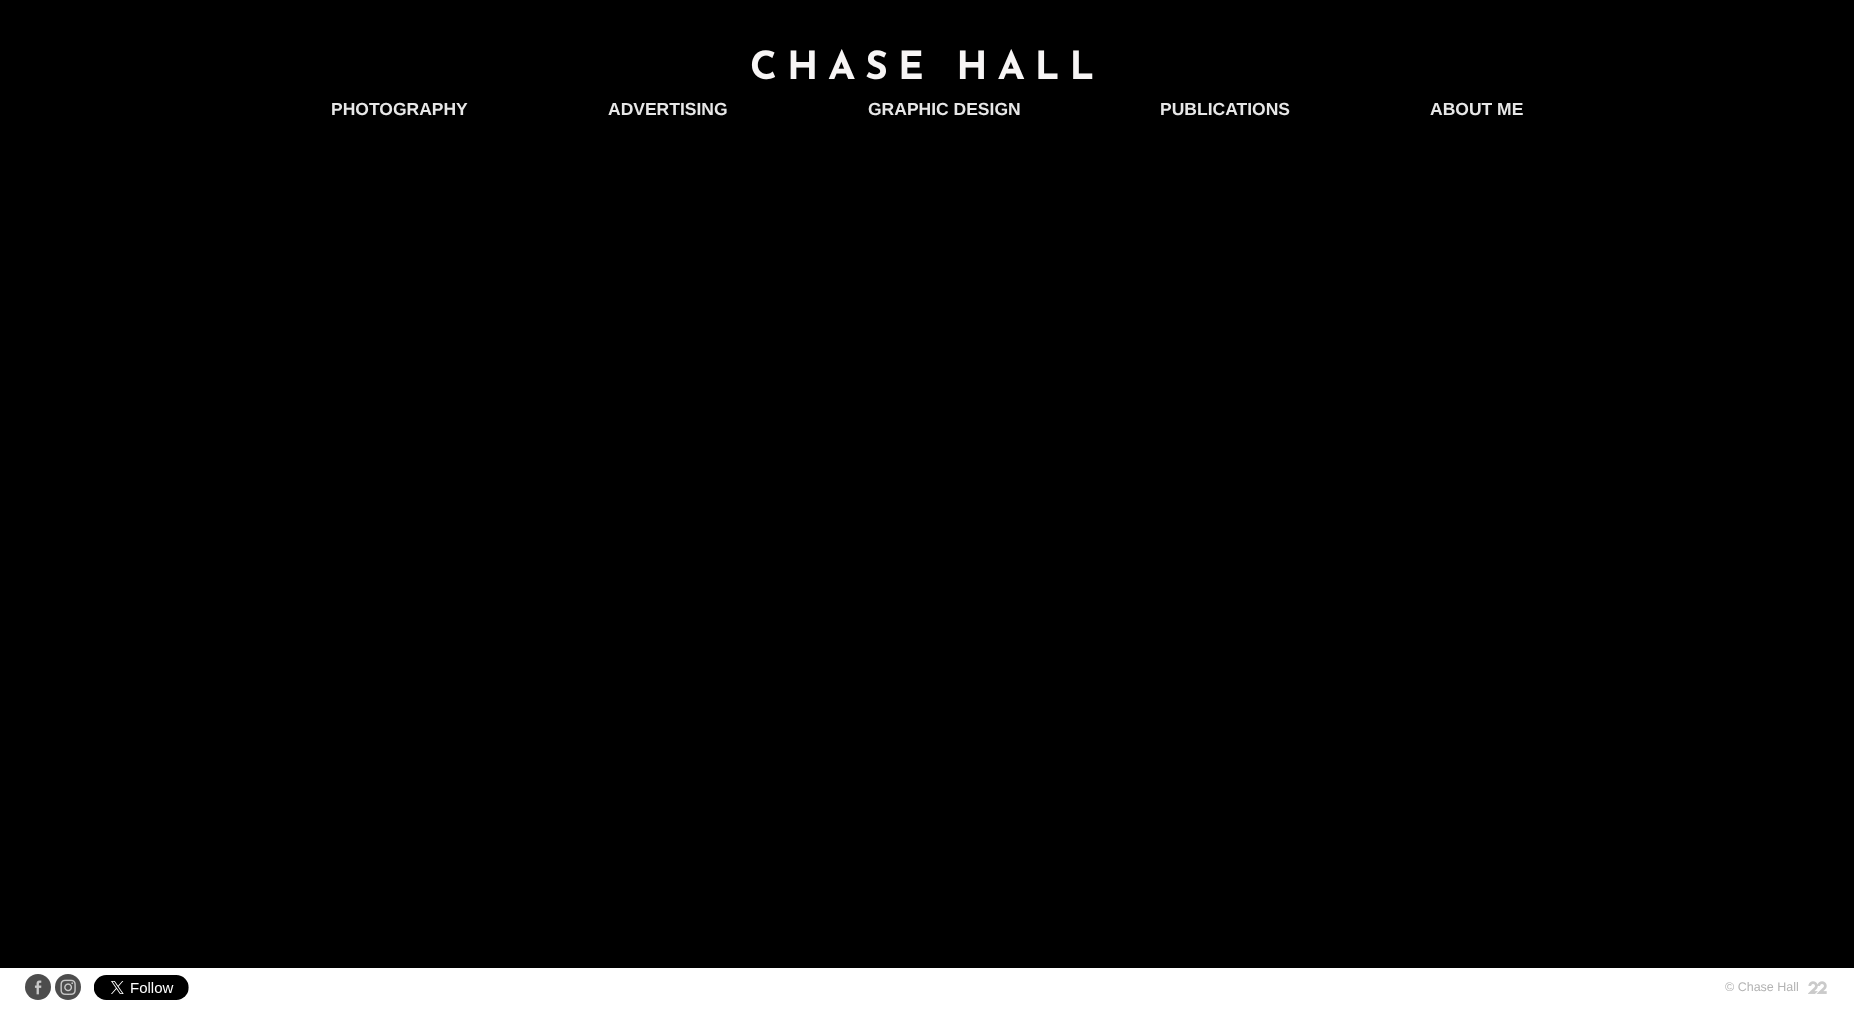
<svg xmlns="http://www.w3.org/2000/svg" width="1854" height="1010">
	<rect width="100%" height="100%" fill="#000000" />
	<text x="750" y="79" font-family="Josefin Sans" font-size="38.75" font-weight="700" letter-spacing="10" fill="#F7F5F5">CHASE HALL</text>
	<g font-family="Liberation Sans" font-size="17.5" font-weight="700" fill="#E7E7E7">
		<text x="331" y="115">PHOTOGRAPHY</text>
		<text x="608" y="115">ADVERTISING</text>
		<text x="868" y="115">GRAPHIC DESIGN</text>
		<text x="1160" y="115">PUBLICATIONS</text>
		<text x="1430" y="115">ABOUT ME</text>
	</g>
	<rect x="0" y="968" width="1854" height="42" fill="#FFFFFF" />
	<circle cx="38" cy="987" r="13" fill="#4D4D4D" />
	<image x="34" y="980" width="8" height="15" href="assets/img1.png" />
	<circle cx="68" cy="987" r="13" fill="#4D4D4D" />
	<image x="60" y="979" width="16" height="16" href="assets/img2.png" />
	<image x="94" y="975" width="95" height="25" href="assets/img3.png" />
	<text x="1725" y="991" font-family="Liberation Sans" font-size="12.5" fill="#B3B3B3">© Chase Hall</text>
	<image x="1808" y="981" width="19" height="13" href="assets/img4.png" />
</svg>
